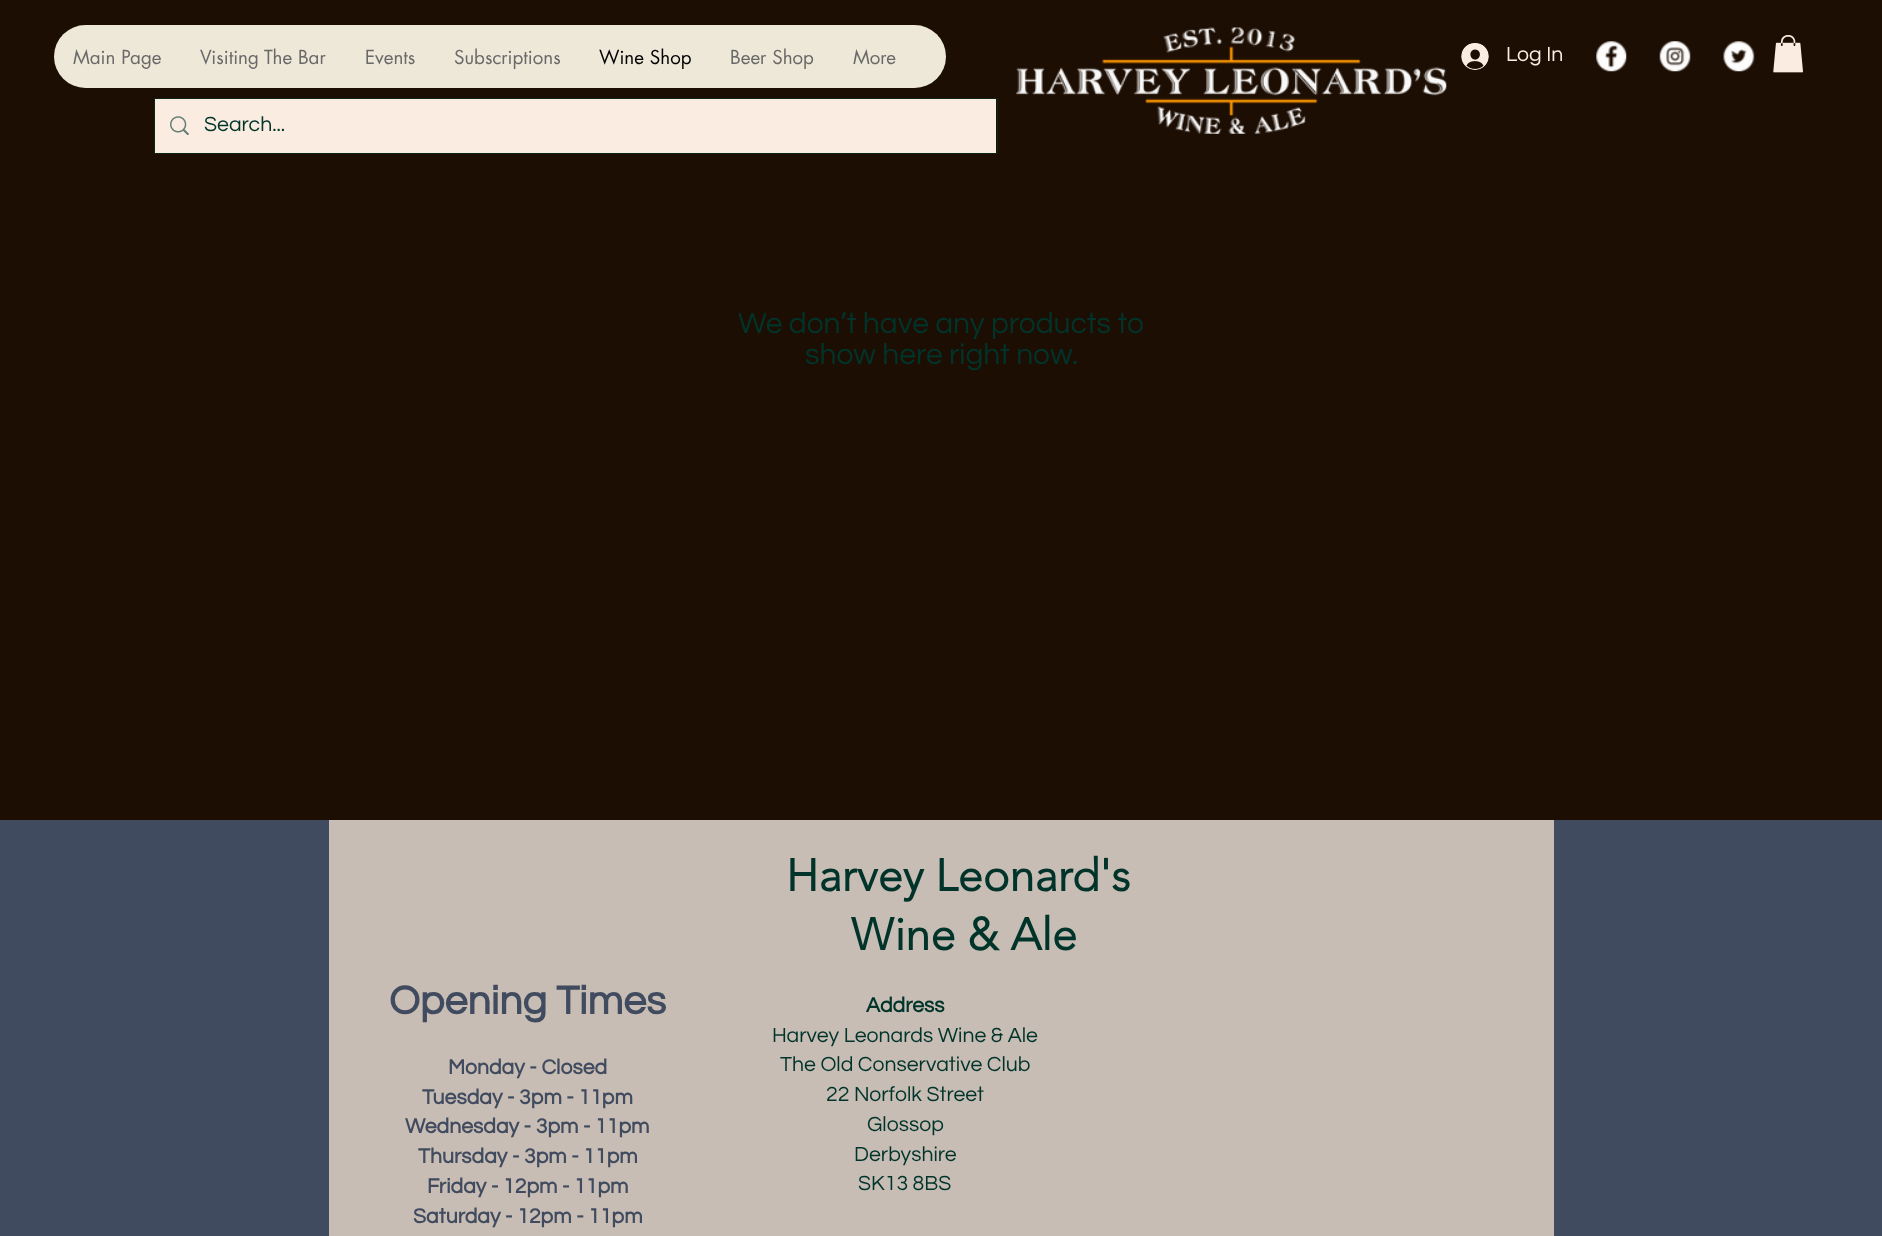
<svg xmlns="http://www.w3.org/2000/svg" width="1882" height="1236">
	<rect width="100%" height="100%" fill="#1D0E03" />
	<rect x="54" y="25" width="892" height="63" rx="31.5" fill="#EEE8D8" />
	<g font-family="futura" font-size="18.75" fill="#696969">
		<text x="73" y="64">Main Page</text>
		<text x="200" y="64">Visiting The Bar</text>
		<text x="365" y="64">Events</text>
		<text x="454" y="64">Subscriptions</text>
	</g>
	<text x="599" y="64" font-family="futura" font-size="18.75" fill="#000000">Wine Shop</text>
	<g font-family="futura" font-size="18.75" fill="#696969">
		<text x="730" y="64">Beer Shop</text>
		<text x="853" y="64">More</text>
	</g>
	<image x="1461" y="43" width="28" height="27" href="assets/img1.png" />
	<text x="1506" y="61" font-family="Questrial" font-size="21.25" fill="#FAECE1">Log In</text>
	<image x="1596" y="41" width="31" height="31" href="assets/img2.png" />
	<image x="1659" y="41" width="32" height="31" href="assets/img3.png" />
	<image x="1723" y="41" width="32" height="31" href="assets/img4.png" />
	<image x="1773" y="35" width="30" height="38" href="assets/img5.png" />
	<rect x="154.5" y="98.5" width="843" height="55" fill="none" stroke="#0C251B" />
	<rect x="155" y="99" width="841" height="54" fill="#FAECE1" />
	<image x="170" y="116" width="19" height="19" href="assets/img6.png" />
	<text x="204" y="131" font-family="Questrial" font-size="21.25" fill="#00342B">Search...</text>
	<image x="1016" y="27" width="431" height="107" href="assets/img7.png" />
	<g font-family="Questrial" font-size="30" fill="#00342B">
		<text x="738" y="333">We don’t have any products to</text>
		<text x="805" y="364">show here right now.</text>
	</g>
	<rect x="0" y="820" width="1882" height="416" fill="#414B5F" />
	<rect x="329" y="820" width="1225" height="416" fill="#C8BDB4" />
	<g font-family="'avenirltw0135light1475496'" font-size="45" font-weight="700" fill="#00342B">
		<text x="786" y="891">Harvey Leonard's</text>
		<text x="851" y="950">Wine &amp; Ale</text>
	</g>
	<text x="389" y="1014" font-family="Questrial" font-size="41.25" font-weight="700" fill="#414B5F">Opening Times</text>
	<g font-family="Questrial" font-size="21.25" font-weight="700" fill="#414B5F">
		<text x="448" y="1074">Monday - Closed</text>
		<text x="422" y="1104">Tuesday - 3pm - 11pm</text>
		<text x="405" y="1133">Wednesday - 3pm - 11pm</text>
		<text x="418" y="1163">Thursday - 3pm - 11pm</text>
		<text x="427" y="1193">Friday - 12pm - 11pm</text>
		<text x="413" y="1223">Saturday - 12pm - 11pm</text>
	</g>
	<text x="866" y="1012" font-family="Questrial" font-size="21.25" font-weight="700" fill="#00342B">Address</text>
	<g font-family="Questrial" font-size="21.25" fill="#00342B">
		<text x="772" y="1042">Harvey Leonards Wine &amp; Ale</text>
		<text x="780" y="1071">The Old Conservative Club</text>
		<text x="826" y="1101">22 Norfolk Street</text>
		<text x="867" y="1131">Glossop</text>
		<text x="854" y="1161">Derbyshire</text>
		<text x="858" y="1190">SK13 8BS</text>
	</g>
</svg>
